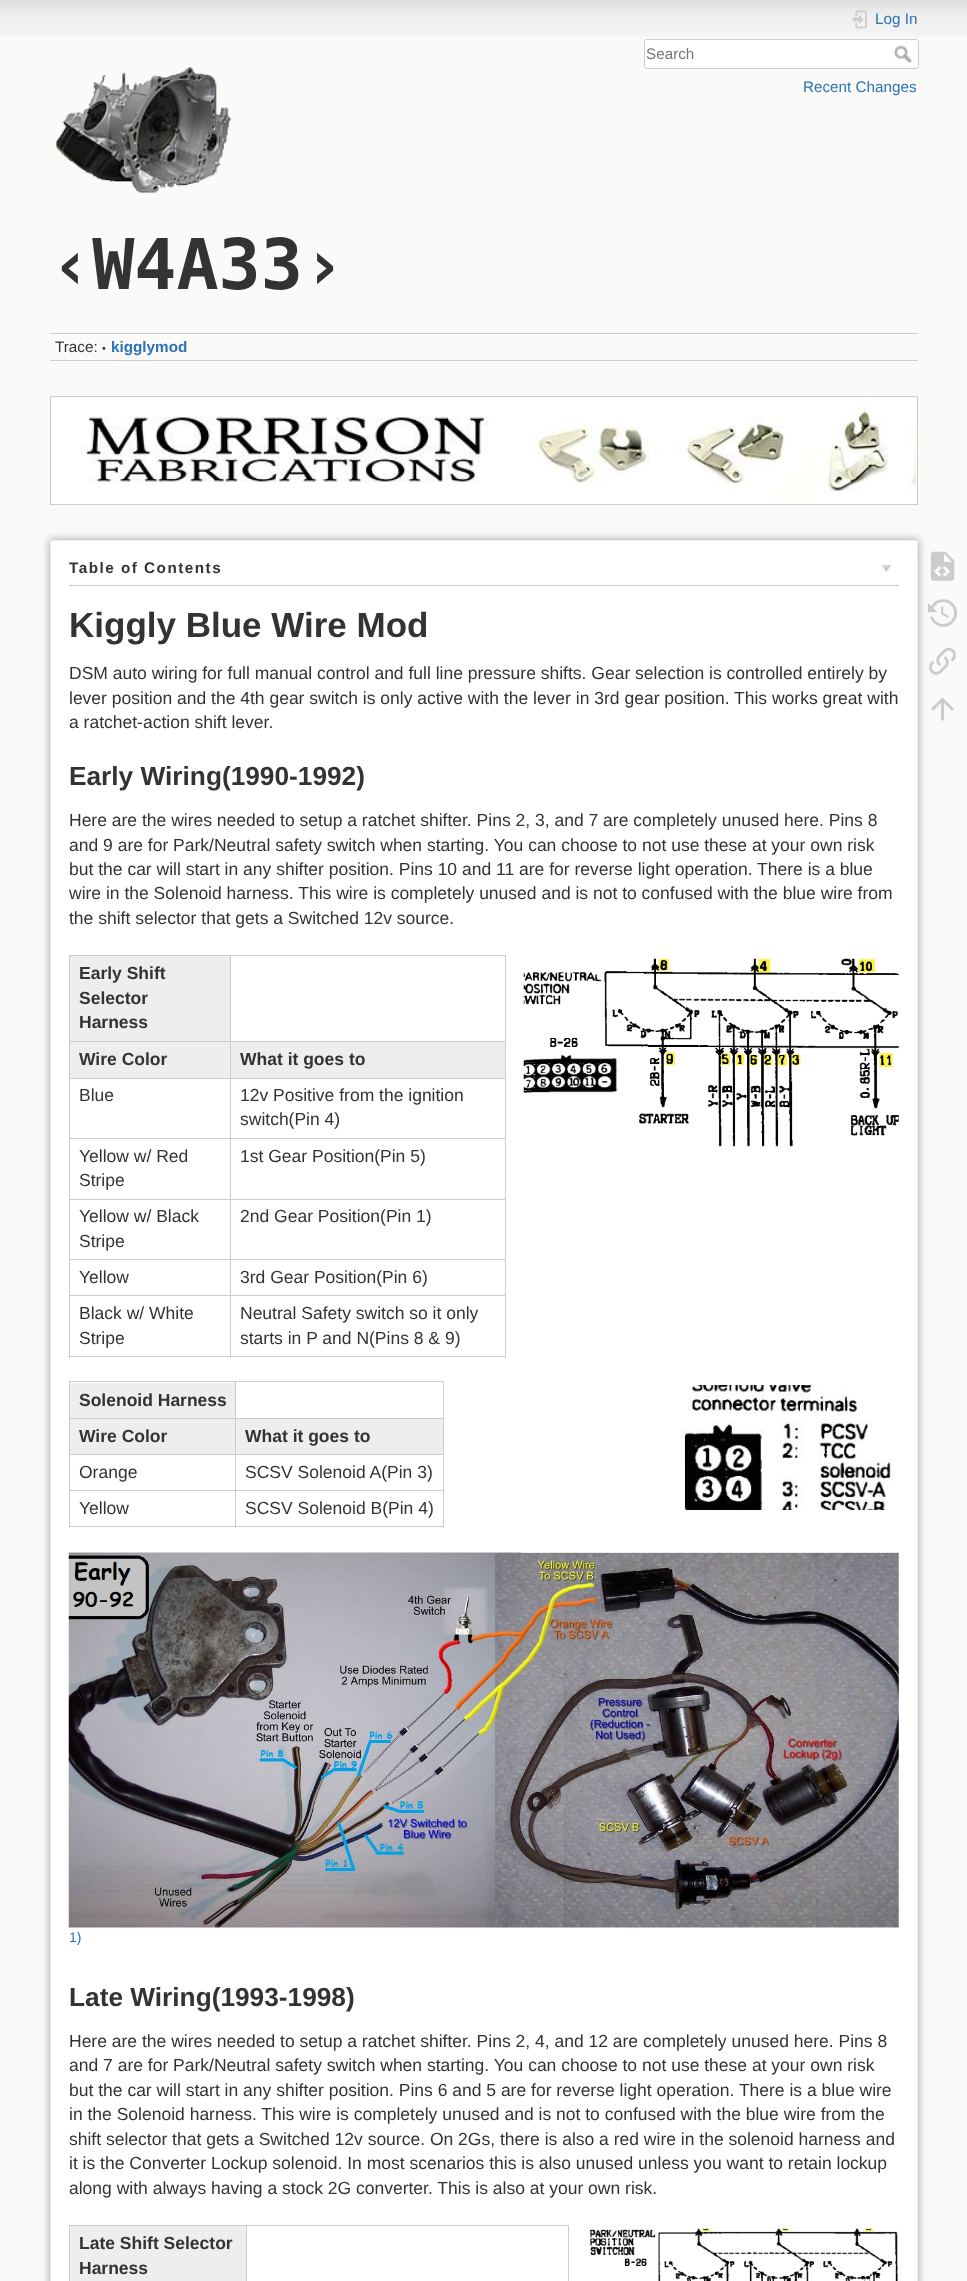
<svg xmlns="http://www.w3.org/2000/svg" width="967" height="2281">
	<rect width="100%" height="100%" fill="#FBFAF9" />
	<image x="0" y="0" width="967" height="36" href="assets/img1.png" />
	<image x="852" y="10" width="15" height="19" href="assets/img2.png" />
	<text x="875" y="24" font-family="Liberation Sans" font-size="15.25" fill="#2B73B7">Log In</text>
	<rect x="644.5" y="39.5" width="274" height="29" rx="2" fill="#FFFFFF" stroke="#CCCCCC" />
	<text x="646" y="59" font-family="Liberation Sans" font-size="15.25" fill="#757575">Search</text>
	<image x="894" y="45" width="18" height="18" href="assets/img3.png" />
	<text x="803" y="92" font-family="Liberation Sans" font-size="15.25" fill="#2B73B7">Recent Changes</text>
	<image x="56" y="67" width="176" height="127" href="assets/img4.png" />
	<text x="50" y="289" font-family="DejaVu Sans Mono" font-size="70" font-weight="700" fill="#333333">‹W4A33›</text>
	<rect x="50" y="333" width="868" height="1" fill="#CCCCCC" />
	<rect x="50" y="361" width="868" height="1" fill="#FFFFFF" />
	<rect x="50" y="334" width="868" height="1" fill="#FFFFFF" />
	<rect x="50" y="360" width="868" height="1" fill="#CCCCCC" />
	<text x="55" y="352" font-family="Liberation Sans" font-size="15.25" fill="#333333">Trace:</text>
	<text x="102" y="352" font-family="Liberation Sans" font-size="11" fill="#333333">•</text>
	<text x="111" y="352" font-family="Liberation Sans" font-size="15.25" font-weight="700" fill="#2B73B7">kigglymod</text>
	<rect x="50.5" y="396.5" width="867" height="108" fill="none" stroke="#CCCCCC" />
	<image x="51" y="398" width="866" height="106" href="assets/img5.png" />
	<rect x="50" y="540" width="868" height="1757" rx="2.5" fill="#999999" filter="blur(4.5px)" />
	<rect x="50.5" y="540.5" width="867" height="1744" rx="2" fill="#FFFFFF" stroke="#EEEEEE" />
	<rect x="69" y="585" width="830" height="1" fill="#CCCCCC" />
	<text x="69" y="573" font-family="Liberation Sans" font-size="15.25" font-weight="700" letter-spacing="1.5" fill="#333333">Table of Contents</text>
	<image x="881" y="565" width="10" height="7" href="assets/img6.png" />
	<text x="69" y="637" font-family="Liberation Sans" font-size="35" font-weight="700" fill="#333333">Kiggly Blue Wire Mod</text>
	<g font-family="Liberation Sans" font-size="17.5" fill="#333333">
		<text x="69" y="679">DSM auto wiring for full manual control and full line pressure shifts. Gear selection is controlled entirely by</text>
		<text x="69" y="704">lever position and the 4th gear switch is only active with the lever in 3rd gear position. This works great with</text>
		<text x="69" y="728">a ratchet-action shift lever.</text>
	</g>
	<text x="69" y="785" font-family="Liberation Sans" font-size="26.25" font-weight="700" fill="#333333">Early Wiring(1990-1992)</text>
	<g font-family="Liberation Sans" font-size="17.5" fill="#333333">
		<text x="69" y="826">Here are the wires needed to setup a ratchet shifter. Pins 2, 3, and 7 are completely unused here. Pins 8</text>
		<text x="69" y="851">and 9 are for Park/Neutral safety switch when starting. You can choose to not use these at your own risk</text>
		<text x="69" y="875">but the car will start in any shifter position. Pins 10 and 11 are for reverse light operation. There is a blue</text>
		<text x="69" y="899">wire in the Solenoid harness. This wire is completely unused and is not to confused with the blue wire from</text>
		<text x="69" y="924">the shift selector that gets a Switched 12v source.</text>
	</g>
	<rect x="69" y="955" width="437" height="1" fill="#CCCCCC" />
	<rect x="505" y="955" width="1" height="403" fill="#CCCCCC" />
	<rect x="69" y="1356" width="437" height="1" fill="#CCCCCC" />
	<rect x="69" y="955" width="1" height="403" fill="#CCCCCC" />
	<rect x="70" y="956" width="160" height="85" fill="#EEEEEE" />
	<g font-family="Liberation Sans" font-size="17.5" font-weight="700" fill="#333333">
		<text x="79" y="979">Early Shift</text>
		<text x="79" y="1004">Selector</text>
		<text x="79" y="1028">Harness</text>
	</g>
	<rect x="230" y="1041" width="276" height="1" fill="#CCCCCC" />
	<rect x="230" y="1078" width="276" height="1" fill="#CCCCCC" />
	<rect x="230" y="1138" width="276" height="1" fill="#CCCCCC" />
	<rect x="230" y="1199" width="276" height="1" fill="#CCCCCC" />
	<rect x="230" y="1259" width="276" height="1" fill="#CCCCCC" />
	<rect x="230" y="1295" width="276" height="1" fill="#CCCCCC" />
	<rect x="230" y="1295" width="1" height="63" fill="#CCCCCC" />
	<rect x="69" y="1295" width="162" height="1" fill="#CCCCCC" />
	<rect x="230" y="1259" width="1" height="37" fill="#CCCCCC" />
	<rect x="69" y="1259" width="162" height="1" fill="#CCCCCC" />
	<rect x="230" y="1199" width="1" height="61" fill="#CCCCCC" />
	<rect x="69" y="1199" width="162" height="1" fill="#CCCCCC" />
	<rect x="230" y="1138" width="1" height="62" fill="#CCCCCC" />
	<rect x="69" y="1138" width="162" height="1" fill="#CCCCCC" />
	<rect x="230" y="1078" width="1" height="61" fill="#CCCCCC" />
	<rect x="69" y="1078" width="162" height="1" fill="#CCCCCC" />
	<rect x="230" y="1041" width="1" height="38" fill="#CCCCCC" />
	<rect x="69" y="1041" width="162" height="1" fill="#CCCCCC" />
	<rect x="230" y="955" width="1" height="88" fill="#CCCCCC" />
	<rect x="70" y="1042" width="160" height="36" fill="#EEEEEE" />
	<text x="79" y="1065" font-family="Liberation Sans" font-size="17.5" font-weight="700" fill="#333333">Wire Color</text>
	<rect x="231" y="1042" width="274" height="36" fill="#EEEEEE" />
	<text x="240" y="1065" font-family="Liberation Sans" font-size="17.5" font-weight="700" fill="#333333">What it goes to</text>
	<g font-family="Liberation Sans" font-size="17.5" fill="#333333">
		<text x="79" y="1101">Blue</text>
		<text x="240" y="1101">12v Positive from the ignition</text>
		<text x="240" y="1125">switch(Pin 4)</text>
		<text x="79" y="1162">Yellow w/ Red</text>
		<text x="79" y="1186">Stripe</text>
		<text x="240" y="1162">1st Gear Position(Pin 5)</text>
		<text x="79" y="1222">Yellow w/ Black</text>
		<text x="79" y="1247">Stripe</text>
		<text x="240" y="1222">2nd Gear Position(Pin 1)</text>
		<text x="79" y="1283">Yellow</text>
		<text x="240" y="1283">3rd Gear Position(Pin 6)</text>
		<text x="79" y="1319">Black w/ White</text>
		<text x="79" y="1344">Stripe</text>
		<text x="240" y="1319">Neutral Safety switch so it only</text>
		<text x="240" y="1344">starts in P and N(Pins 8 &amp; 9)</text>
	</g>
	<image x="523" y="958" width="376" height="189" href="assets/img7.png" />
	<rect x="69" y="1381" width="375" height="1" fill="#CCCCCC" />
	<rect x="443" y="1381" width="1" height="147" fill="#CCCCCC" />
	<rect x="69" y="1526" width="375" height="1" fill="#CCCCCC" />
	<rect x="69" y="1381" width="1" height="147" fill="#CCCCCC" />
	<rect x="70" y="1383" width="165" height="35" fill="#EEEEEE" />
	<text x="79" y="1406" font-family="Liberation Sans" font-size="17.5" font-weight="700" fill="#333333">Solenoid Harness</text>
	<rect x="235" y="1418" width="209" height="1" fill="#CCCCCC" />
	<rect x="235" y="1454" width="209" height="1" fill="#CCCCCC" />
	<rect x="235" y="1490" width="209" height="1" fill="#CCCCCC" />
	<rect x="235" y="1490" width="1" height="38" fill="#CCCCCC" />
	<rect x="69" y="1490" width="167" height="1" fill="#CCCCCC" />
	<rect x="235" y="1454" width="1" height="37" fill="#CCCCCC" />
	<rect x="69" y="1454" width="167" height="1" fill="#CCCCCC" />
	<rect x="235" y="1418" width="1" height="37" fill="#CCCCCC" />
	<rect x="69" y="1418" width="167" height="1" fill="#CCCCCC" />
	<rect x="235" y="1381" width="1" height="38" fill="#CCCCCC" />
	<rect x="70" y="1419" width="165" height="35" fill="#EEEEEE" />
	<text x="79" y="1442" font-family="Liberation Sans" font-size="17.5" font-weight="700" fill="#333333">Wire Color</text>
	<rect x="236" y="1419" width="207" height="35" fill="#EEEEEE" />
	<text x="245" y="1442" font-family="Liberation Sans" font-size="17.5" font-weight="700" fill="#333333">What it goes to</text>
	<g font-family="Liberation Sans" font-size="17.5" fill="#333333">
		<text x="79" y="1478">Orange</text>
		<text x="245" y="1478">SCSV Solenoid A(Pin 3)</text>
		<text x="79" y="1514">Yellow</text>
		<text x="245" y="1514">SCSV Solenoid B(Pin 4)</text>
	</g>
	<image x="680" y="1385" width="215" height="125" href="assets/img8.png" />
	<image x="68" y="1552" width="831" height="376" href="assets/img9.png" />
	<text x="69" y="1942" font-family="Liberation Sans" font-size="14" fill="#2B73B7">1)</text>
	<text x="69" y="2006" font-family="Liberation Sans" font-size="26.25" font-weight="700" fill="#333333">Late Wiring(1993-1998)</text>
	<g font-family="Liberation Sans" font-size="17.5" fill="#333333">
		<text x="69" y="2047">Here are the wires needed to setup a ratchet shifter. Pins 2, 4, and 12 are completely unused here. Pins 8</text>
		<text x="69" y="2071">and 7 are for Park/Neutral safety switch when starting. You can choose to not use these at your own risk</text>
		<text x="69" y="2096">but the car will start in any shifter position. Pins 6 and 5 are for reverse light operation. There is a blue wire</text>
		<text x="69" y="2120">in the Solenoid harness. This wire is completely unused and is not to confused with the blue wire from the</text>
		<text x="69" y="2145">shift selector that gets a Switched 12v source. On 2Gs, there is also a red wire in the solenoid harness and</text>
		<text x="69" y="2169">it is the Converter Lockup solenoid. In most scenarios this is also unused unless you want to retain lockup</text>
		<text x="69" y="2194">along with always having a stock 2G converter. This is also at your own risk.</text>
	</g>
	<rect x="69" y="2225" width="500" height="1" fill="#CCCCCC" />
	<rect x="568" y="2225" width="1" height="56" fill="#CCCCCC" />
	<rect x="69" y="2225" width="1" height="56" fill="#CCCCCC" />
	<rect x="70" y="2226" width="176" height="55" fill="#EEEEEE" />
	<g font-family="Liberation Sans" font-size="17.5" font-weight="700" fill="#333333">
		<text x="79" y="2249">Late Shift Selector</text>
		<text x="79" y="2274">Harness</text>
	</g>
	<rect x="246" y="2225" width="1" height="56" fill="#CCCCCC" />
	<image x="590" y="2228" width="308" height="53" href="assets/img10.png" />
	<image x="930" y="551" width="25" height="30" href="assets/img11.png" />
	<image x="928" y="599" width="29" height="28" href="assets/img12.png" />
	<image x="929" y="647" width="27" height="28" href="assets/img13.png" />
	<image x="931" y="697" width="23" height="24" href="assets/img14.png" />
</svg>
